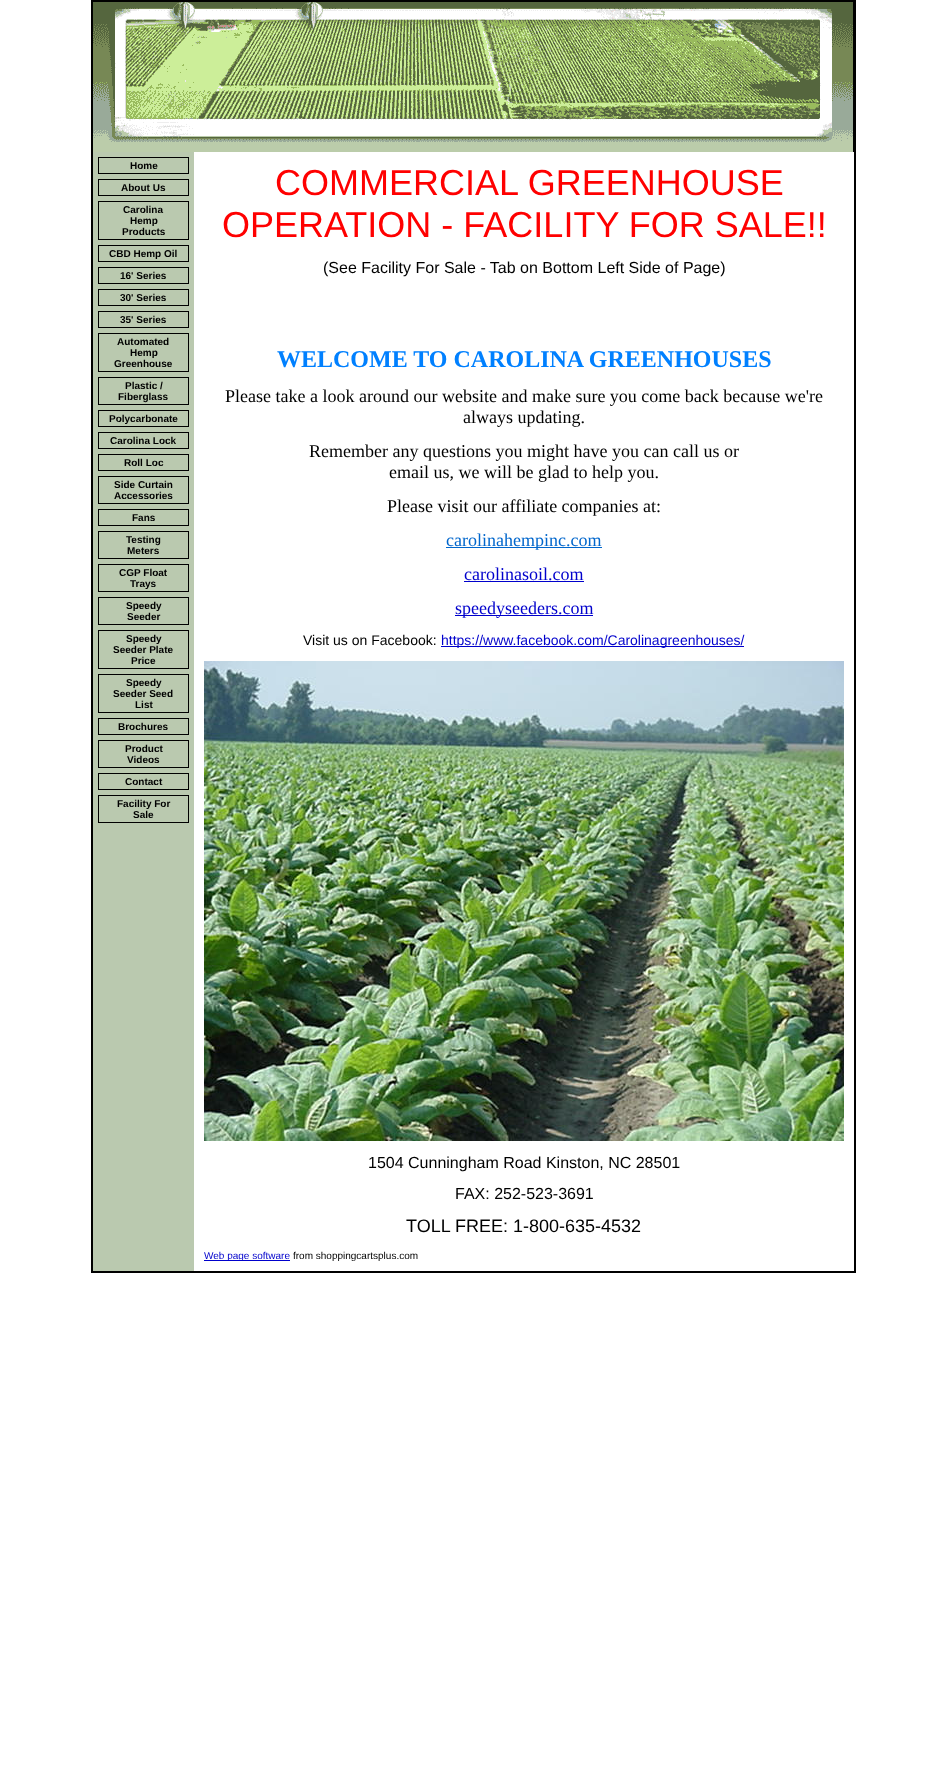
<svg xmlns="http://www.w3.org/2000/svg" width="947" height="1784">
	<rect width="100%" height="100%" fill="#FFFFFF" />
	<rect x="91" y="0" width="765" height="1273" fill="#000000" />
	<image x="93" y="2" width="760" height="150" href="assets/img1.png" />
	<rect x="93" y="152" width="101" height="1119" fill="#BAC9AF" />
	<rect x="98" y="157" width="91" height="17" fill="#000000" />
	<rect x="99" y="158" width="89" height="15" fill="#BAC9AF" />
	<text x="130" y="169" font-family="Liberation Sans" font-size="10" font-weight="700" fill="#000000">Home</text>
	<rect x="98" y="179" width="91" height="17" fill="#000000" />
	<rect x="99" y="180" width="89" height="15" fill="#BAC9AF" />
	<text x="121" y="191" font-family="Liberation Sans" font-size="10" font-weight="700" fill="#000000">About Us</text>
	<rect x="98" y="201" width="91" height="39" fill="#000000" />
	<rect x="99" y="202" width="89" height="37" fill="#BAC9AF" />
	<g font-family="Liberation Sans" font-size="10" font-weight="700" fill="#000000">
		<text x="123" y="213">Carolina</text>
		<text x="130" y="224">Hemp</text>
		<text x="122" y="235">Products</text>
	</g>
	<rect x="98" y="245" width="91" height="17" fill="#000000" />
	<rect x="99" y="246" width="89" height="15" fill="#BAC9AF" />
	<text x="109" y="257" font-family="Liberation Sans" font-size="10" font-weight="700" fill="#000000">CBD Hemp Oil</text>
	<rect x="98" y="267" width="91" height="17" fill="#000000" />
	<rect x="99" y="268" width="89" height="15" fill="#BAC9AF" />
	<text x="120" y="279" font-family="Liberation Sans" font-size="10" font-weight="700" fill="#000000">16' Series</text>
	<rect x="98" y="289" width="91" height="17" fill="#000000" />
	<rect x="99" y="290" width="89" height="15" fill="#BAC9AF" />
	<text x="120" y="301" font-family="Liberation Sans" font-size="10" font-weight="700" fill="#000000">30' Series</text>
	<rect x="98" y="311" width="91" height="17" fill="#000000" />
	<rect x="99" y="312" width="89" height="15" fill="#BAC9AF" />
	<text x="120" y="323" font-family="Liberation Sans" font-size="10" font-weight="700" fill="#000000">35' Series</text>
	<rect x="98" y="333" width="91" height="39" fill="#000000" />
	<rect x="99" y="334" width="89" height="37" fill="#BAC9AF" />
	<g font-family="Liberation Sans" font-size="10" font-weight="700" fill="#000000">
		<text x="117" y="345">Automated</text>
		<text x="130" y="356">Hemp</text>
		<text x="114" y="367">Greenhouse</text>
	</g>
	<rect x="98" y="377" width="91" height="28" fill="#000000" />
	<rect x="99" y="378" width="89" height="26" fill="#BAC9AF" />
	<g font-family="Liberation Sans" font-size="10" font-weight="700" fill="#000000">
		<text x="125" y="389">Plastic /</text>
		<text x="118" y="400">Fiberglass</text>
	</g>
	<rect x="98" y="410" width="91" height="17" fill="#000000" />
	<rect x="99" y="411" width="89" height="15" fill="#BAC9AF" />
	<text x="109" y="422" font-family="Liberation Sans" font-size="10" font-weight="700" fill="#000000">Polycarbonate</text>
	<rect x="98" y="432" width="91" height="17" fill="#000000" />
	<rect x="99" y="433" width="89" height="15" fill="#BAC9AF" />
	<text x="110" y="444" font-family="Liberation Sans" font-size="10" font-weight="700" fill="#000000">Carolina Lock</text>
	<rect x="98" y="454" width="91" height="17" fill="#000000" />
	<rect x="99" y="455" width="89" height="15" fill="#BAC9AF" />
	<text x="124" y="466" font-family="Liberation Sans" font-size="10" font-weight="700" fill="#000000">Roll Loc</text>
	<rect x="98" y="476" width="91" height="28" fill="#000000" />
	<rect x="99" y="477" width="89" height="26" fill="#BAC9AF" />
	<g font-family="Liberation Sans" font-size="10" font-weight="700" fill="#000000">
		<text x="114" y="488">Side Curtain</text>
		<text x="114" y="499">Accessories</text>
	</g>
	<rect x="98" y="509" width="91" height="17" fill="#000000" />
	<rect x="99" y="510" width="89" height="15" fill="#BAC9AF" />
	<text x="132" y="521" font-family="Liberation Sans" font-size="10" font-weight="700" fill="#000000">Fans</text>
	<rect x="98" y="531" width="91" height="28" fill="#000000" />
	<rect x="99" y="532" width="89" height="26" fill="#BAC9AF" />
	<g font-family="Liberation Sans" font-size="10" font-weight="700" fill="#000000">
		<text x="126" y="543">Testing</text>
		<text x="127" y="554">Meters</text>
	</g>
	<rect x="98" y="564" width="91" height="28" fill="#000000" />
	<rect x="99" y="565" width="89" height="26" fill="#BAC9AF" />
	<g font-family="Liberation Sans" font-size="10" font-weight="700" fill="#000000">
		<text x="119" y="576">CGP Float</text>
		<text x="130" y="587">Trays</text>
	</g>
	<rect x="98" y="597" width="91" height="28" fill="#000000" />
	<rect x="99" y="598" width="89" height="26" fill="#BAC9AF" />
	<g font-family="Liberation Sans" font-size="10" font-weight="700" fill="#000000">
		<text x="126" y="609">Speedy</text>
		<text x="127" y="620">Seeder</text>
	</g>
	<rect x="98" y="630" width="91" height="39" fill="#000000" />
	<rect x="99" y="631" width="89" height="37" fill="#BAC9AF" />
	<g font-family="Liberation Sans" font-size="10" font-weight="700" fill="#000000">
		<text x="126" y="642">Speedy</text>
		<text x="113" y="653">Seeder Plate</text>
		<text x="131" y="664">Price</text>
	</g>
	<rect x="98" y="674" width="91" height="39" fill="#000000" />
	<rect x="99" y="675" width="89" height="37" fill="#BAC9AF" />
	<g font-family="Liberation Sans" font-size="10" font-weight="700" fill="#000000">
		<text x="126" y="686">Speedy</text>
		<text x="113" y="697">Seeder Seed</text>
		<text x="135" y="708">List</text>
	</g>
	<rect x="98" y="718" width="91" height="17" fill="#000000" />
	<rect x="99" y="719" width="89" height="15" fill="#BAC9AF" />
	<text x="118" y="730" font-family="Liberation Sans" font-size="10" font-weight="700" fill="#000000">Brochures</text>
	<rect x="98" y="740" width="91" height="28" fill="#000000" />
	<rect x="99" y="741" width="89" height="26" fill="#BAC9AF" />
	<g font-family="Liberation Sans" font-size="10" font-weight="700" fill="#000000">
		<text x="125" y="752">Product</text>
		<text x="127" y="763">Videos</text>
	</g>
	<rect x="98" y="773" width="91" height="17" fill="#000000" />
	<rect x="99" y="774" width="89" height="15" fill="#BAC9AF" />
	<text x="125" y="785" font-family="Liberation Sans" font-size="10" font-weight="700" fill="#000000">Contact</text>
	<rect x="98" y="795" width="91" height="28" fill="#000000" />
	<rect x="99" y="796" width="89" height="26" fill="#BAC9AF" />
	<g font-family="Liberation Sans" font-size="10" font-weight="700" fill="#000000">
		<text x="117" y="807">Facility For</text>
		<text x="133" y="818">Sale</text>
	</g>
	<rect x="194" y="152" width="660" height="1119" fill="#FFFFFF" />
	<g font-family="Liberation Sans" font-size="36" fill="#FF0000">
		<text x="275" y="195">COMMERCIAL GREENHOUSE</text>
		<text x="222" y="237">OPERATION - FACILITY FOR SALE!!</text>
	</g>
	<text x="323" y="273" font-family="Liberation Sans" font-size="16" fill="#000000">(See Facility For Sale - Tab on Bottom Left Side of Page)</text>
	<text x="277" y="367" font-family="Liberation Serif" font-size="24" font-weight="700" fill="#0080FF">WELCOME TO CAROLINA GREENHOUSES</text>
	<g font-family="Liberation Serif" font-size="18" fill="#000000">
		<text x="225" y="402">Please take a look around our website and make sure you come back because we're</text>
		<text x="463" y="423">always updating.</text>
		<text x="309" y="457">Remember any questions you might have you can call us or</text>
		<text x="389" y="478">email us, we will be glad to help you.</text>
		<text x="387" y="512">Please visit our affiliate companies at:</text>
	</g>
	<rect x="446" y="547" width="156" height="1" fill="#0066CC" />
	<text x="446" y="546" font-family="Liberation Serif" font-size="18" fill="#0066CC">carolinahempinc.com</text>
	<text x="464" y="580" font-family="Liberation Serif" font-size="18" fill="#0000CC">carolinasoil.com</text>
	<rect x="464" y="581" width="120" height="1" fill="#0000CC" />
	<rect x="455" y="615" width="138" height="1" fill="#0000CC" />
	<text x="455" y="614" font-family="Liberation Serif" font-size="18" fill="#0000CC">speedyseeders.com</text>
	<text x="303" y="645" font-family="Liberation Sans" font-size="14" fill="#000000">Visit us on Facebook:</text>
	<rect x="441" y="646" width="303" height="1" fill="#0000CC" />
	<text x="441" y="645" font-family="Liberation Sans" font-size="14" fill="#0000CC">https://www.facebook.com/Carolinagreenhouses/</text>
	<image x="204" y="661" width="640" height="480" href="assets/img2.png" />
	<g font-family="Liberation Sans" font-size="16" fill="#000000">
		<text x="368" y="1168">1504 Cunningham Road Kinston, NC 28501</text>
		<text x="455" y="1199">FAX: 252-523-3691</text>
	</g>
	<text x="406" y="1232" font-family="Liberation Sans" font-size="18" fill="#000000">TOLL FREE: 1-800-635-4532</text>
	<rect x="204" y="1260" width="86" height="1" fill="#0000CC" />
	<text x="204" y="1259" font-family="Liberation Sans" font-size="10" fill="#0000CC">Web page software</text>
	<text x="293" y="1259" font-family="Liberation Sans" font-size="10" fill="#000000">from shoppingcartsplus.com</text>
</svg>
